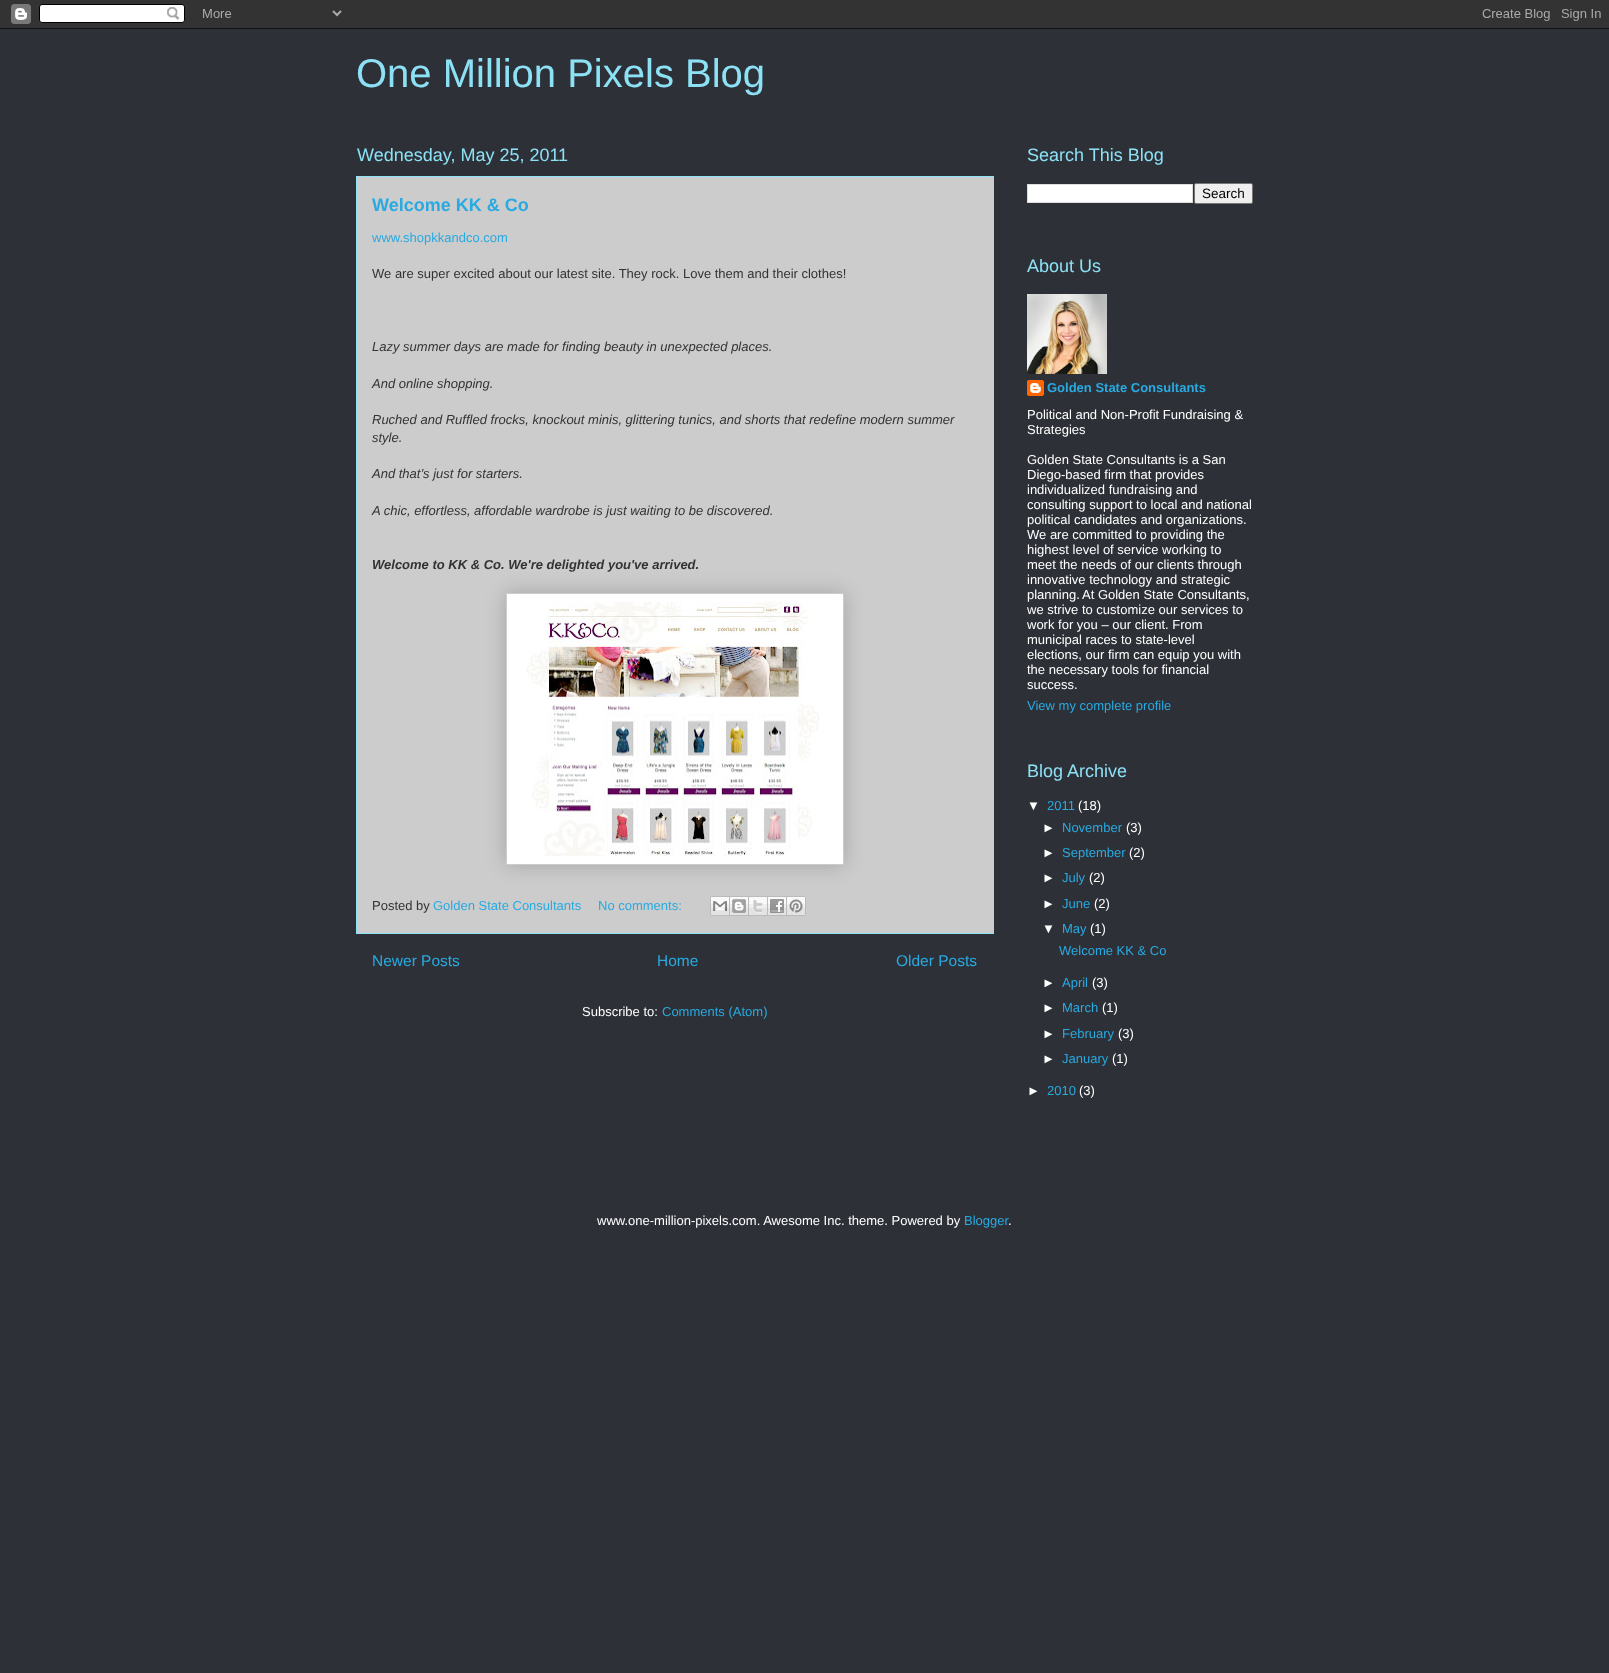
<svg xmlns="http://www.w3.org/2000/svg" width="1609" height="1673">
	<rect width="100%" height="100%" fill="#2D3037" />
	<image x="0" y="0" width="1609" height="29" href="assets/img1.png" />
	<text x="356" y="87" font-family="Liberation Sans" font-size="40" fill="#8CE1F5">One Million Pixels Blog</text>
	<rect x="356.5" y="176.5" width="637" height="757" fill="#CCCCCC" stroke="#8CE1F5" />
	<text x="357" y="161" font-family="Liberation Sans" font-size="18" fill="#8CE1F5">Wednesday, May 25, 2011</text>
	<text x="372" y="211" font-family="Liberation Sans" font-size="18" font-weight="700" fill="#29AAE1">Welcome KK &amp; Co</text>
	<text x="372" y="242" font-family="Liberation Sans" font-size="13" fill="#29AAE1">www.shopkkandco.com</text>
	<text x="372" y="278" font-family="Liberation Sans" font-size="13" fill="#333333">We are super excited about our latest site. They rock. Love them and their clothes!</text>
	<g font-family="Liberation Sans" font-size="13" font-style="italic" fill="#333333">
		<text x="372" y="351">Lazy summer days are made for finding beauty in unexpected places.</text>
		<text x="372" y="388">And online shopping.</text>
		<text x="372" y="424">Ruched and Ruffled frocks, knockout minis, glittering tunics, and shorts that redefine modern summer</text>
		<text x="372" y="442">style.</text>
		<text x="372" y="478">And that’s just for starters.</text>
		<text x="372" y="515">A chic, effortless, affordable wardrobe is just waiting to be discovered.</text>
	</g>
	<text x="372" y="569" font-family="Liberation Sans" font-size="13" font-weight="700" font-style="italic" fill="#333333">Welcome to KK &amp; Co. We're delighted you've arrived.</text>
	<rect x="506" y="593" width="338" height="272" fill="#000000" fill-opacity="0.2" filter="blur(10px)" />
	<rect x="506.5" y="593.5" width="337" height="271" fill="#FFFFFF" stroke="#CCCCCC" />
	<image x="526" y="602" width="293" height="254" href="assets/img2.png" />
	<text x="372" y="910" font-family="Liberation Sans" font-size="13" fill="#333333">Posted by</text>
	<g font-family="Liberation Sans" font-size="13" fill="#29AAE1">
		<text x="433" y="910">Golden State Consultants</text>
		<text x="598" y="910">No comments:</text>
	</g>
	<image x="710" y="896" width="20" height="20" href="assets/img3.png" />
	<image x="730" y="896" width="19" height="20" href="assets/img4.png" />
	<image x="749" y="896" width="19" height="20" href="assets/img5.png" />
	<image x="768" y="896" width="19" height="20" href="assets/img6.png" />
	<image x="787" y="896" width="19" height="20" href="assets/img7.png" />
	<g font-family="Liberation Sans" font-size="15.5" fill="#29AAE1">
		<text x="372" y="966">Newer Posts</text>
		<text x="657" y="966">Home</text>
		<text x="896" y="966">Older Posts</text>
	</g>
	<text x="582" y="1016" font-family="Liberation Sans" font-size="13" fill="#FFFFFF">Subscribe to:</text>
	<text x="662" y="1016" font-family="Liberation Sans" font-size="13" fill="#29AAE1">Comments (Atom)</text>
	<text x="1027" y="161" font-family="Liberation Sans" font-size="18" fill="#8CE1F5">Search This Blog</text>
	<rect x="1027.5" y="184.5" width="165" height="18" fill="#FFFFFF" stroke="#DDDDDD" />
	<rect x="1194.5" y="183.5" width="58" height="20" rx="1.5" fill="#EFEFEF" stroke="#767676" />
	<text x="1202" y="198" font-family="Liberation Sans" font-size="13.5" fill="#000000">Search</text>
	<text x="1027" y="272" font-family="Liberation Sans" font-size="18" fill="#8CE1F5">About Us</text>
	<image x="1027" y="294" width="80" height="80" href="assets/img8.png" />
	<image x="1027" y="380" width="17" height="16" href="assets/img9.png" />
	<text x="1047" y="392" font-family="Liberation Sans" font-size="13" font-weight="700" fill="#29AAE1">Golden State Consultants</text>
	<g font-family="Liberation Sans" font-size="13" fill="#FFFFFF">
		<text x="1027" y="419">Political and Non-Profit Fundraising &amp;</text>
		<text x="1027" y="434">Strategies</text>
		<text x="1027" y="464">Golden State Consultants is a San</text>
		<text x="1027" y="479">Diego-based firm that provides</text>
		<text x="1027" y="494">individualized fundraising and</text>
		<text x="1027" y="509">consulting support to local and national</text>
		<text x="1027" y="524">political candidates and organizations.</text>
		<text x="1027" y="539">We are committed to providing the</text>
		<text x="1027" y="554">highest level of service working to</text>
		<text x="1027" y="569">meet the needs of our clients through</text>
		<text x="1027" y="584">innovative technology and strategic</text>
		<text x="1027" y="599">planning.</text>
		<text x="1082" y="599">At Golden State Consultants,</text>
		<text x="1027" y="614">we strive to customize our services to</text>
		<text x="1027" y="629">work for you – our client. From</text>
		<text x="1027" y="644">municipal races to state-level</text>
		<text x="1027" y="659">elections, our firm can equip you with</text>
		<text x="1027" y="674">the necessary tools for financial</text>
		<text x="1027" y="689">success.</text>
	</g>
	<text x="1027" y="710" font-family="Liberation Sans" font-size="13" fill="#29AAE1">View my complete profile</text>
	<text x="1027" y="777" font-family="Liberation Sans" font-size="18" fill="#8CE1F5">Blog Archive</text>
	<text x="1027" y="810" font-family="Liberation Sans" font-size="13" fill="#FFFFFF">▼</text>
	<text x="1047" y="810" font-family="Liberation Sans" font-size="13" fill="#29AAE1">2011</text>
	<g font-family="Liberation Sans" font-size="13" fill="#FFFFFF">
		<text x="1078" y="810">(18)</text>
		<text x="1042" y="832">►</text>
	</g>
	<text x="1062" y="832" font-family="Liberation Sans" font-size="13" fill="#29AAE1">November</text>
	<g font-family="Liberation Sans" font-size="13" fill="#FFFFFF">
		<text x="1126" y="832">(3)</text>
		<text x="1042" y="857">►</text>
	</g>
	<text x="1062" y="857" font-family="Liberation Sans" font-size="13" fill="#29AAE1">September</text>
	<g font-family="Liberation Sans" font-size="13" fill="#FFFFFF">
		<text x="1129" y="857">(2)</text>
		<text x="1042" y="882">►</text>
	</g>
	<text x="1062" y="882" font-family="Liberation Sans" font-size="13" fill="#29AAE1">July</text>
	<g font-family="Liberation Sans" font-size="13" fill="#FFFFFF">
		<text x="1089" y="882">(2)</text>
		<text x="1042" y="908">►</text>
	</g>
	<text x="1062" y="908" font-family="Liberation Sans" font-size="13" fill="#29AAE1">June</text>
	<g font-family="Liberation Sans" font-size="13" fill="#FFFFFF">
		<text x="1094" y="908">(2)</text>
		<text x="1042" y="933">▼</text>
	</g>
	<text x="1062" y="933" font-family="Liberation Sans" font-size="13" fill="#29AAE1">May</text>
	<text x="1090" y="933" font-family="Liberation Sans" font-size="13" fill="#FFFFFF">(1)</text>
	<text x="1059" y="955" font-family="Liberation Sans" font-size="13" fill="#29AAE1">Welcome KK &amp; Co</text>
	<text x="1042" y="987" font-family="Liberation Sans" font-size="13" fill="#FFFFFF">►</text>
	<text x="1062" y="987" font-family="Liberation Sans" font-size="13" fill="#29AAE1">April</text>
	<g font-family="Liberation Sans" font-size="13" fill="#FFFFFF">
		<text x="1092" y="987">(3)</text>
		<text x="1042" y="1012">►</text>
	</g>
	<text x="1062" y="1012" font-family="Liberation Sans" font-size="13" fill="#29AAE1">March</text>
	<g font-family="Liberation Sans" font-size="13" fill="#FFFFFF">
		<text x="1102" y="1012">(1)</text>
		<text x="1042" y="1038">►</text>
	</g>
	<text x="1062" y="1038" font-family="Liberation Sans" font-size="13" fill="#29AAE1">February</text>
	<g font-family="Liberation Sans" font-size="13" fill="#FFFFFF">
		<text x="1118" y="1038">(3)</text>
		<text x="1042" y="1063">►</text>
	</g>
	<text x="1062" y="1063" font-family="Liberation Sans" font-size="13" fill="#29AAE1">January</text>
	<g font-family="Liberation Sans" font-size="13" fill="#FFFFFF">
		<text x="1112" y="1063">(1)</text>
		<text x="1027" y="1095">►</text>
	</g>
	<text x="1047" y="1095" font-family="Liberation Sans" font-size="13" fill="#29AAE1">2010</text>
	<g font-family="Liberation Sans" font-size="13" fill="#FFFFFF">
		<text x="1079" y="1095">(3)</text>
		<text x="597" y="1225">www.one-million-pixels.com. Awesome Inc. theme. Powered by</text>
	</g>
	<text x="964" y="1225" font-family="Liberation Sans" font-size="13" fill="#29AAE1">Blogger</text>
	<text x="1008" y="1225" font-family="Liberation Sans" font-size="13" fill="#FFFFFF">.</text>
</svg>
